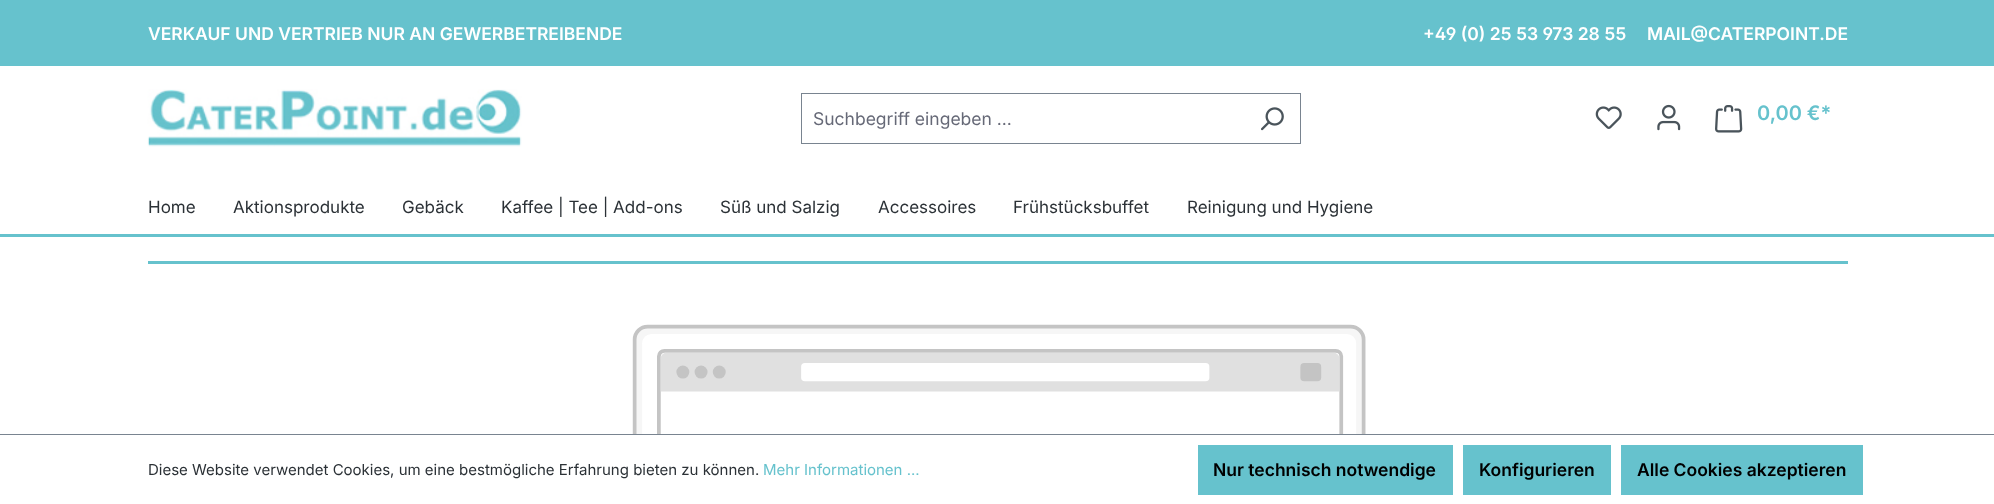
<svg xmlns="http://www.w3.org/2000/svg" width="1994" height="504">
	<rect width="100%" height="100%" fill="#FFFFFF" />
	<rect x="0" y="0" width="1994" height="66" fill="#66C2CD" />
	<text x="148" y="40" font-family="Inter" font-size="17.5" font-weight="600" fill="#FFFFFF">VERKAUF UND VERTRIEB NUR AN GEWERBETREIBENDE</text>
	<text x="1423" y="40" font-family="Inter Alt" font-size="17.5" font-weight="600" fill="#FFFFFF">+49 (0) 25 53 973 28 55</text>
	<text x="1647" y="40" font-family="Inter" font-size="17.5" font-weight="600" fill="#FFFFFF">MAIL@CATERPOINT.DE</text>
	<image x="147" y="89" width="375" height="58" href="assets/img1.png" />
	<rect x="801" y="93" width="500" height="1" fill="#798490" />
	<rect x="801" y="143" width="443" height="1" fill="#798490" />
	<rect x="801" y="93" width="1" height="51" fill="#798490" />
	<text x="813" y="125" font-family="Inter" font-size="17.5" fill="#666977">Suchbegriff eingeben ...</text>
	<rect x="1300" y="93" width="1" height="51" fill="#798490" />
	<rect x="1243" y="143" width="58" height="1" fill="#798490" />
	<image x="1261" y="107" width="23" height="24" href="assets/img2.png" />
	<image x="1595" y="106" width="27" height="23" href="assets/img3.png" />
	<image x="1657" y="104" width="24" height="27" href="assets/img4.png" />
	<image x="1715" y="105" width="28" height="28" href="assets/img5.png" />
	<text x="1757" y="120" font-family="Inter" font-size="20" font-weight="600" fill="#66C2CD">0,00 €*</text>
	<g font-family="Inter" font-size="17" fill="#2B3136">
		<text x="148" y="213">Home</text>
		<text x="233" y="213">Aktionsprodukte</text>
		<text x="402" y="213">Gebäck</text>
		<text x="501" y="213">Kaffee | Tee | Add-ons</text>
		<text x="720" y="213">Süß und Salzig</text>
		<text x="878" y="213">Accessoires</text>
		<text x="1013" y="213">Frühstücksbuffet</text>
		<text x="1187" y="213">Reinigung und Hygiene</text>
	</g>
	<rect x="0" y="234" width="1994" height="3" fill="#66C2CD" />
	<rect x="148" y="261" width="1700" height="3" fill="#66C2CD" />
	<image x="632" y="324" width="734" height="110" href="assets/img6.png" />
	<rect x="0" y="434" width="1994" height="1" fill="#798490" />
	<text x="148" y="475" font-family="Inter" font-size="15" fill="#2B3136">Diese Website verwendet Cookies, um eine bestmögliche Erfahrung bieten zu können.</text>
	<text x="763" y="475" font-family="Inter" font-size="15" fill="#66C2CD">Mehr Informationen ...</text>
	<rect x="1198" y="445" width="255" height="50" fill="#66C2CD" />
	<text x="1213" y="476" font-family="Inter" font-size="17.5" font-weight="600" fill="#000000">Nur technisch notwendige</text>
	<rect x="1463" y="445" width="148" height="50" fill="#66C2CD" />
	<text x="1479" y="476" font-family="Inter" font-size="17.5" font-weight="600" fill="#000000">Konfigurieren</text>
	<rect x="1621" y="445" width="242" height="50" fill="#66C2CD" />
	<text x="1637" y="476" font-family="Inter" font-size="17.5" font-weight="600" fill="#000000">Alle Cookies akzeptieren</text>
</svg>
